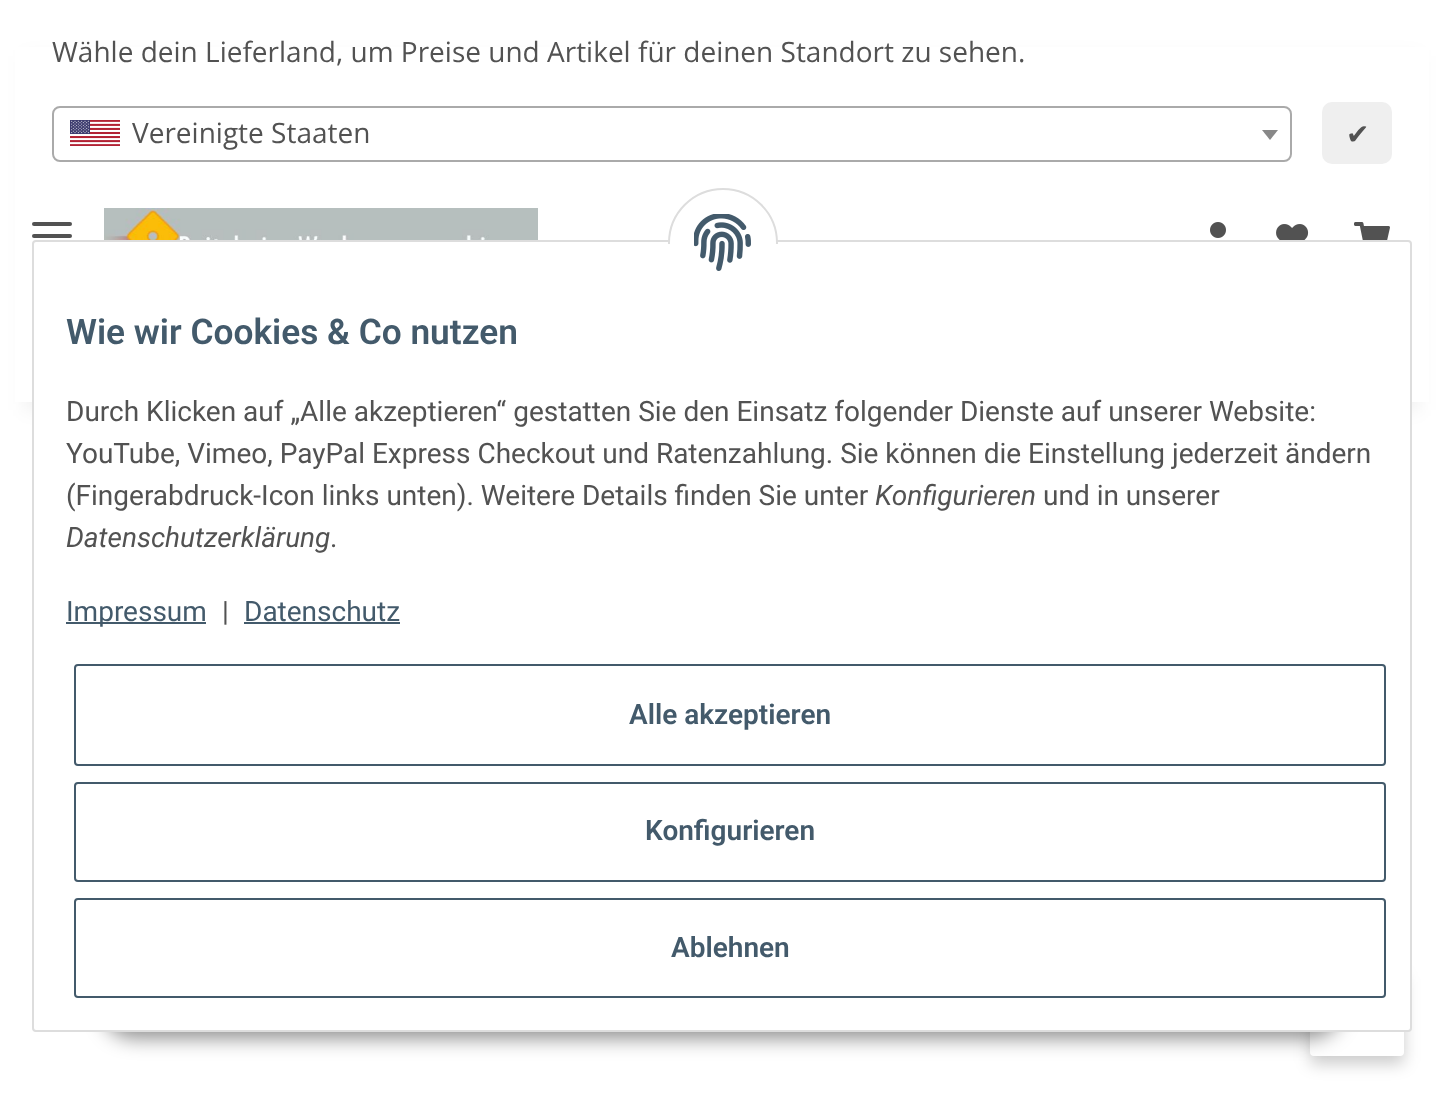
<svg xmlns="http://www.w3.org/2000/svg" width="1443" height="1095">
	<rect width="100%" height="100%" fill="#FFFFFF" />
	<rect x="24" y="56" width="1396" height="354" fill="#000000" fill-opacity="0.06" filter="blur(9px)" />
	<rect x="15" y="47" width="1414" height="355" fill="#FFFFFF" />
	<text x="52" y="62" font-family="Open Sans" font-size="28" fill="#525252">Wähle dein Lieferland, um Preise und Artikel für deinen Standort zu sehen.</text>
	<rect x="53" y="107" width="1238" height="54" rx="7" fill="none" stroke="#AAAAAA" stroke-width="2" />
	<image x="70" y="120" width="50" height="26" href="assets/img1.png" />
	<text x="132" y="143" font-family="Open Sans" font-size="28" fill="#525252">Vereinigte Staaten</text>
	<path d="M1262 130H1278L1270 140Z" fill="#888888" />
	<rect x="1322" y="102" width="70" height="62" rx="10" fill="#EFEFEF" />
	<text x="1346" y="144" font-family="DejaVu Sans" font-size="28" fill="#525252">✔</text>
	<rect x="32" y="234" width="40" height="4" rx="2" fill="#525252" />
	<rect x="32" y="222" width="40" height="4" rx="2" fill="#525252" />
	<image x="104" y="208" width="434" height="32" href="assets/img2.png" />
	<image x="1210" y="222" width="16" height="16" href="assets/img3.png" />
	<image x="1276" y="224" width="33" height="16" href="assets/img4.png" />
	<image x="1354" y="222" width="36" height="18" href="assets/img5.png" />
	<rect x="1310" y="976" width="94" height="88" rx="4" fill="#000000" fill-opacity="0.2" filter="blur(8px)" />
	<rect x="1310" y="968" width="94" height="88" rx="4" fill="#FFFFFF" />
	<rect x="102" y="974" width="1240" height="64" rx="32" fill="#000000" fill-opacity="0.45" filter="blur(10px)" />
	<rect x="33" y="241" width="1378" height="790" rx="3" fill="#FFFFFF" stroke="#DDDDDD" stroke-width="2" />
	<circle cx="723" cy="243" r="54" fill="#FFFFFF" stroke="#DDDDDD" stroke-width="2" />
	<rect x="668" y="244" width="110" height="54" fill="#FFFFFF" />
	<image x="694" y="214" width="57" height="57" href="assets/img6.png" />
	<text x="66" y="344" font-family="Roboto" font-size="35.25" font-weight="600" fill="#435A6B">Wie wir Cookies &amp; Co nutzen</text>
	<g font-family="Roboto" font-size="28" fill="#525252">
		<text x="66" y="421">Durch Klicken auf „Alle akzeptieren“ gestatten Sie den Einsatz folgender Dienste auf unserer Website:</text>
		<text x="66" y="463">YouTube, Vimeo, PayPal Express Checkout und Ratenzahlung. Sie können die Einstellung jederzeit ändern</text>
		<text x="66" y="505">(Fingerabdruck-Icon links unten). Weitere Details finden Sie unter</text>
	</g>
	<text x="875" y="505" font-family="Roboto" font-size="28" font-style="italic" fill="#525252">Konfigurieren</text>
	<text x="1043" y="505" font-family="Roboto" font-size="28" fill="#525252">und in unserer</text>
	<text x="66" y="547" font-family="Roboto" font-size="28" font-style="italic" fill="#525252">Datenschutzerklärung</text>
	<text x="330" y="547" font-family="Roboto" font-size="28" fill="#525252">.</text>
	<rect x="66" y="622" width="140" height="2" fill="#435A6B" />
	<text x="66" y="621" font-family="Roboto" font-size="28" fill="#435A6B">Impressum</text>
	<text x="222" y="621" font-family="Roboto" font-size="28" fill="#525252">|</text>
	<text x="244" y="621" font-family="Roboto" font-size="28" fill="#435A6B">Datenschutz</text>
	<rect x="244" y="622" width="156" height="2" fill="#435A6B" />
	<rect x="75" y="665" width="1310" height="100" rx="3" fill="none" stroke="#435A6B" stroke-width="2" />
	<text x="629" y="724" font-family="Roboto" font-size="28" font-weight="600" fill="#435A6B">Alle akzeptieren</text>
	<rect x="75" y="783" width="1310" height="98" rx="3" fill="none" stroke="#435A6B" stroke-width="2" />
	<text x="645" y="840" font-family="Roboto" font-size="28" font-weight="600" fill="#435A6B">Konfigurieren</text>
	<rect x="75" y="899" width="1310" height="98" rx="3" fill="none" stroke="#435A6B" stroke-width="2" />
	<text x="671" y="957" font-family="Roboto" font-size="28" font-weight="600" fill="#435A6B">Ablehnen</text>
</svg>
